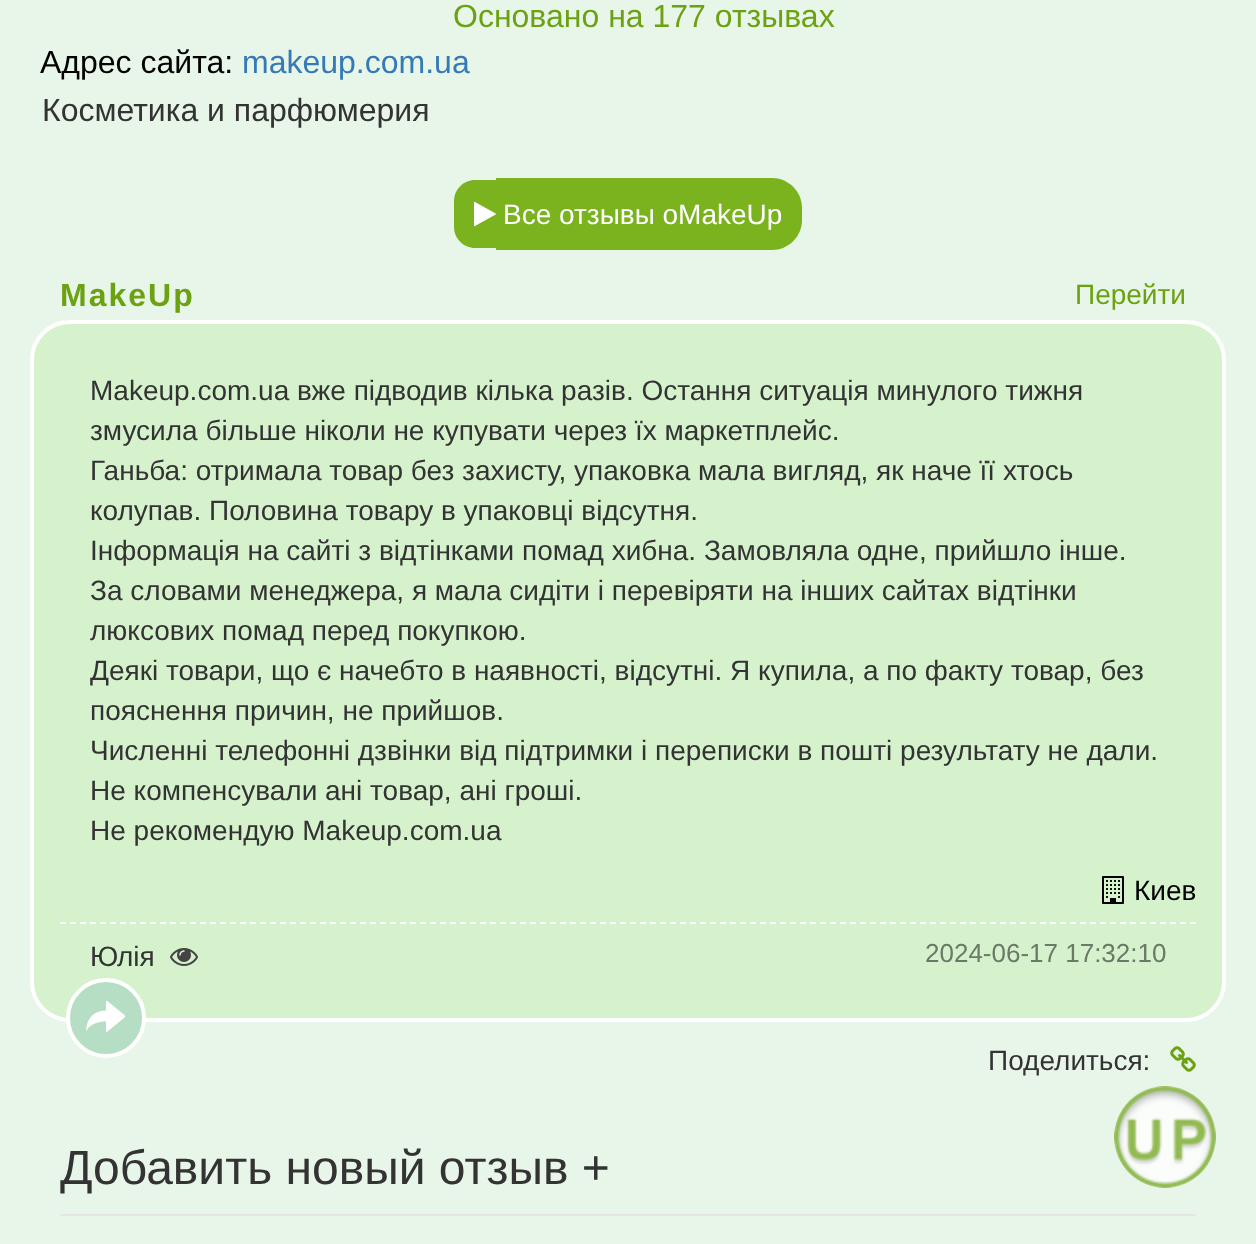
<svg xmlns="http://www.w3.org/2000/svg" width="1256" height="1244">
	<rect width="100%" height="100%" fill="#E8F5E9" />
	<text x="453" y="27" font-family="Liberation Sans" font-size="32" fill="#6CA211">Основано на 177 отзывах</text>
	<text x="40" y="73" font-family="Liberation Sans" font-size="32" fill="#000000">Адрес сайта:</text>
	<text x="242" y="73" font-family="Liberation Sans" font-size="32" fill="#337AB7">makeup.com.ua</text>
	<text x="42" y="121" font-family="Liberation Sans" font-size="32" fill="#333333">Косметика и парфюмерия</text>
	<path d="M475 180H496V248H475C463.5 248 454 238.5 454 227V201C454 189.5 463.5 180 475 180Z" fill="#7BB31F" />
	<path d="M496 178H772C788.5 178 802 191.5 802 208V220C802 236.5 788.5 250 772 250H496Z" fill="#7BB31F" />
	<image x="474" y="201" width="22" height="26" href="assets/img1.png" />
	<text x="503" y="224" font-family="Liberation Sans" font-size="28" fill="#FFFFFF">Все отзывы оMakeUp</text>
	<text x="60" y="306" font-family="Liberation Sans" font-size="32" font-weight="700" letter-spacing="2" fill="#6CA211">MakeUp</text>
	<text x="1075" y="304" font-family="Liberation Sans" font-size="28" fill="#6CA211">Перейти</text>
	<rect x="32" y="322" width="1192" height="698" rx="38" fill="#D5F2CD" stroke="#FFFFFF" stroke-width="4" />
	<g font-family="Liberation Sans" font-size="28" fill="#333333">
		<text x="90" y="400">Makeup.com.ua вже підводив кілька разів. Остання ситуація минулого тижня</text>
		<text x="90" y="440">змусила більше ніколи не купувати через їх маркетплейс.</text>
		<text x="90" y="480">Ганьба: отримала товар без захисту, упаковка мала вигляд, як наче її хтось</text>
		<text x="90" y="520">колупав. Половина товару в упаковці відсутня.</text>
		<text x="90" y="560">Інформація на сайті з відтінками помад хибна. Замовляла одне, прийшло інше.</text>
		<text x="90" y="600">За словами менеджера, я мала сидіти і перевіряти на інших сайтах відтінки</text>
		<text x="90" y="640">люксових помад перед покупкою.</text>
		<text x="90" y="680">Деякі товари, що є начебто в наявності, відсутні. Я купила, а по факту товар, без</text>
		<text x="90" y="720">пояснення причин, не прийшов.</text>
		<text x="90" y="760">Численні телефонні дзвінки від підтримки і переписки в пошті результату не дали.</text>
		<text x="90" y="800">Не компенсували ані товар, ані гроші.</text>
		<text x="90" y="840">Не рекомендую Makeup.com.ua</text>
	</g>
	<image x="1102" y="876" width="22" height="28" href="assets/img2.png" />
	<text x="1134" y="900" font-family="Liberation Sans" font-size="28" fill="#000000">Киев</text>
	<path d="M60 923H1196" fill="none" stroke="#FFFFFF" stroke-width="2" stroke-dasharray="6 4" />
	<text x="90" y="966" font-family="Liberation Sans" font-size="28" fill="#333333">Юлія</text>
	<image x="170" y="948" width="28" height="18" href="assets/img3.png" />
	<text x="925" y="962" font-family="Liberation Sans" font-size="26" fill="#6B7967">2024-06-17 17:32:10</text>
	<circle cx="106" cy="1018" r="38" fill="#B6DEC4" stroke="#FFFFFF" stroke-width="4" />
	<image x="86" y="1000" width="40" height="32" href="assets/img4.png" />
	<text x="988" y="1070" font-family="Liberation Sans" font-size="28" fill="#333333">Поделиться:</text>
	<image x="1170" y="1046" width="26" height="26" href="assets/img5.png" />
	<rect x="60" y="1214" width="1136" height="2" fill="#E5E5E5" />
	<text x="60" y="1184" font-family="Liberation Sans" font-size="48" fill="#333333">Добавить новый отзыв +</text>
	<image x="1114" y="1086" width="102" height="102" href="assets/img6.png" />
</svg>
